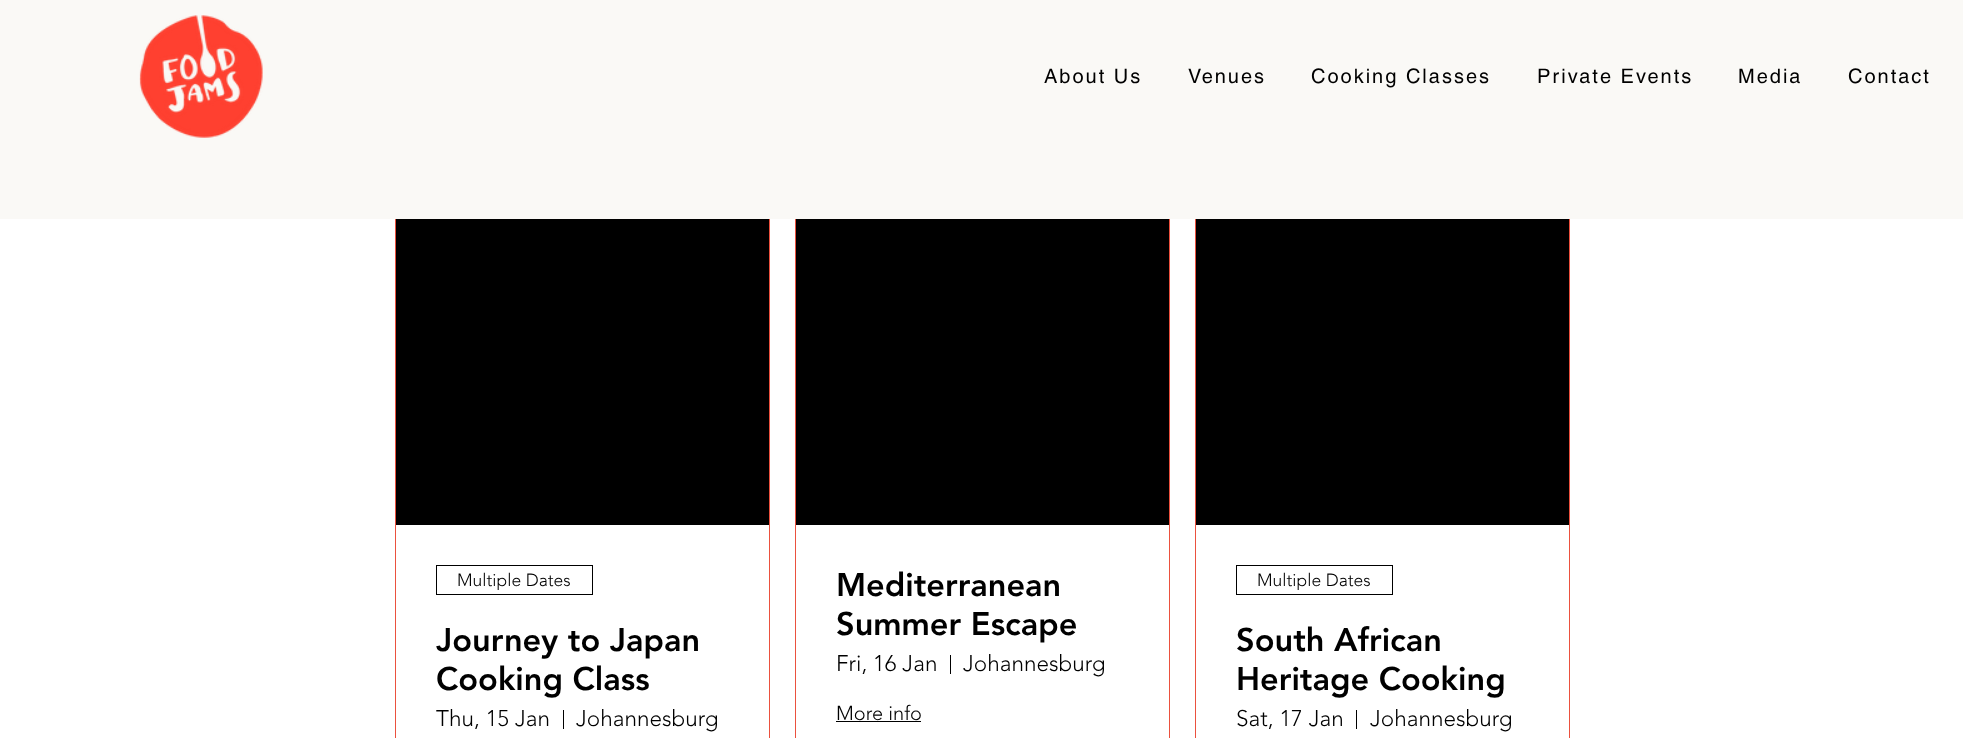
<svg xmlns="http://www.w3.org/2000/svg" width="1963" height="738">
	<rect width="100%" height="100%" fill="#FFFFFF" />
	<rect x="395.5" y="151.5" width="374" height="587" fill="none" stroke="#EB513E" />
	<rect x="795.5" y="151.5" width="374" height="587" fill="none" stroke="#EB513E" />
	<rect x="1195.5" y="151.5" width="374" height="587" fill="none" stroke="#EB513E" />
	<rect x="0" y="0" width="1963" height="219" fill="#FAF9F6" />
	<image x="139" y="15" width="124" height="123" href="assets/img1.png" />
	<g font-family="helvetica" font-size="20" letter-spacing="2" fill="#000000">
		<text x="1044" y="83">About Us</text>
		<text x="1188" y="83">Venues</text>
		<text x="1311" y="83">Cooking Classes</text>
		<text x="1537" y="83">Private Events</text>
		<text x="1738" y="83">Media</text>
		<text x="1848" y="83">Contact</text>
	</g>
	<rect x="396" y="219" width="373" height="306" fill="#000000" />
	<rect x="436.5" y="565.5" width="156" height="29" fill="none" stroke="#000000" />
	<text x="457" y="586" font-family="'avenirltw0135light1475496'" font-size="17.5" font-weight="300" fill="#000000">Multiple Dates</text>
	<g font-family="'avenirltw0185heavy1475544'" font-size="32.5" font-weight="900" fill="#000000">
		<text x="436" y="651">Journey to Japan</text>
		<text x="436" y="690">Cooking Class</text>
	</g>
	<text x="436" y="726" font-family="'avenirltw0135light1475496'" font-size="22.5" font-weight="300" fill="#000000">Thu, 15 Jan</text>
	<rect x="563" y="710" width="1" height="19" fill="#000000" />
	<text x="576" y="726" font-family="'avenirltw0135light1475496'" font-size="22.5" font-weight="300" fill="#000000">Johannesburg</text>
	<rect x="796" y="219" width="373" height="306" fill="#000000" />
	<g font-family="'avenirltw0185heavy1475544'" font-size="32.5" font-weight="900" fill="#000000">
		<text x="836" y="596">Mediterranean</text>
		<text x="836" y="635">Summer Escape</text>
	</g>
	<text x="836" y="671" font-family="'avenirltw0135light1475496'" font-size="22.5" font-weight="300" fill="#000000">Fri, 16 Jan</text>
	<rect x="950" y="655" width="1" height="19" fill="#000000" />
	<text x="963" y="671" font-family="'avenirltw0135light1475496'" font-size="22.5" font-weight="300" fill="#000000">Johannesburg</text>
	<text x="836" y="720" font-family="'avenirltw0135light1475496'" font-size="20" font-weight="300" fill="#000000">More info</text>
	<rect x="836" y="721" width="85" height="1" fill="#000000" />
	<rect x="1196" y="219" width="373" height="306" fill="#000000" />
	<rect x="1236.5" y="565.5" width="156" height="29" fill="none" stroke="#000000" />
	<text x="1257" y="586" font-family="'avenirltw0135light1475496'" font-size="17.5" font-weight="300" fill="#000000">Multiple Dates</text>
	<g font-family="'avenirltw0185heavy1475544'" font-size="32.5" font-weight="900" fill="#000000">
		<text x="1236" y="651">South African</text>
		<text x="1236" y="690">Heritage Cooking</text>
	</g>
	<text x="1236" y="726" font-family="'avenirltw0135light1475496'" font-size="22.5" font-weight="300" fill="#000000">Sat, 17 Jan</text>
	<rect x="1356" y="710" width="1" height="19" fill="#000000" />
	<text x="1370" y="726" font-family="'avenirltw0135light1475496'" font-size="22.5" font-weight="300" fill="#000000">Johannesburg</text>
</svg>
